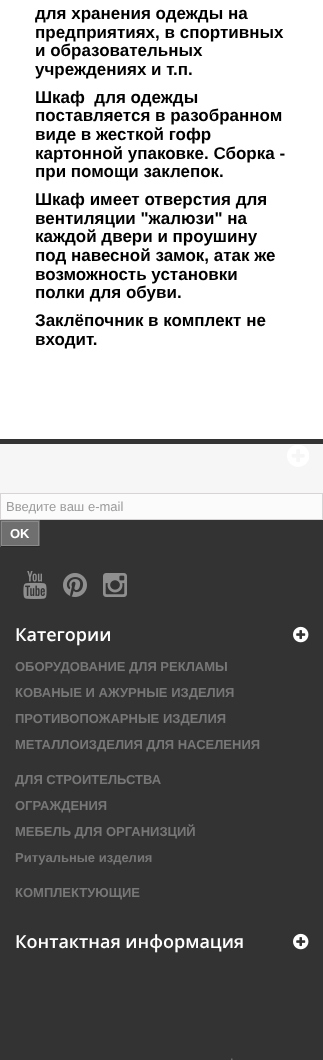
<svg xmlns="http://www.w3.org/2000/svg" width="323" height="1060">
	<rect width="100%" height="100%" fill="#FFFFFF" />
	<g font-family="Liberation Sans" font-size="17" font-weight="700" fill="#000000">
		<text x="35" y="19">для хранения одежды на</text>
		<text x="35" y="38">предприятиях, в спортивных</text>
		<text x="35" y="56">и образовательных</text>
		<text x="35" y="75">учреждениях и т.п.</text>
		<text x="35" y="103" xml:space="preserve">Шкаф  для одежды</text>
		<text x="35" y="121">поставляется в разобранном</text>
		<text x="35" y="140">виде в жесткой гофр</text>
		<text x="35" y="159">картонной упаковке. Сборка -</text>
		<text x="35" y="177">при помощи заклепок.</text>
		<text x="35" y="205">Шкаф имеет отверстия для</text>
		<text x="35" y="224">вентиляции "жалюзи" на</text>
		<text x="35" y="242">каждой двери и проушину</text>
		<text x="35" y="261">под навесной замок, атак же</text>
		<text x="35" y="280">возможность установки</text>
		<text x="35" y="298">полки для обуви.</text>
		<text x="35" y="326">Заклёпочник в комплект не</text>
		<text x="35" y="345">входит.</text>
	</g>
	<rect x="0" y="520" width="323" height="540" fill="#333333" />
	<rect x="0" y="444" width="323" height="49" fill="#F6F6F6" />
	<rect x="0" y="439" width="323" height="5" fill="#333333" />
	<image x="287" y="445" width="22" height="22" href="assets/img1.png" />
	<rect x="0.5" y="493.5" width="322" height="26" fill="#FBFBFB" stroke="#D6D4D4" />
	<text x="6" y="511" font-family="Liberation Sans" font-size="13" fill="#9C9B9B">Введите ваш e-mail</text>
	<rect x="0" y="520" width="40" height="1" fill="#666666" />
	<rect x="39" y="520" width="1" height="27" fill="#5F5F5F" />
	<rect x="0" y="546" width="40" height="1" fill="#292929" />
	<rect x="0" y="520" width="1" height="27" fill="#5F5F5F" />
	<rect x="1.5" y="521.5" width="37" height="24" fill="#6F6F6F" stroke="#8B8A8A" />
	<text x="10" y="538" font-family="Liberation Sans" font-size="13" font-weight="700" fill="#FFFFFF">OK</text>
	<image x="23" y="571" width="24" height="28" href="assets/img2.png" />
	<image x="63" y="573" width="24" height="24" href="assets/img3.png" />
	<image x="103" y="573" width="24" height="24" href="assets/img4.png" />
	<text x="15" y="641" font-family="Open Sans" font-size="18" font-weight="600" fill="#FFFFFF">Категории</text>
	<image x="293" y="626" width="16" height="17" href="assets/img5.png" />
	<g font-family="Liberation Sans" font-size="13" font-weight="700" fill="#777777">
		<text x="15" y="671">ОБОРУДОВАНИЕ ДЛЯ РЕКЛАМЫ</text>
		<text x="15" y="697">КОВАНЫЕ И АЖУРНЫЕ ИЗДЕЛИЯ</text>
		<text x="15" y="723">ПРОТИВОПОЖАРНЫЕ ИЗДЕЛИЯ</text>
		<text x="15" y="749">МЕТАЛЛОИЗДЕЛИЯ ДЛЯ НАСЕЛЕНИЯ</text>
		<text x="15" y="784">ДЛЯ СТРОИТЕЛЬСТВА</text>
		<text x="15" y="810">ОГРАЖДЕНИЯ</text>
		<text x="15" y="836">МЕБЕЛЬ ДЛЯ ОРГАНИЗЦИЙ</text>
		<text x="15" y="862">Ритуальные изделия</text>
		<text x="15" y="897">КОМПЛЕКТУЮЩИЕ</text>
	</g>
	<text x="15" y="948" font-family="Open Sans" font-size="18" font-weight="600" fill="#FFFFFF">Контактная информация</text>
	<image x="293" y="933" width="16" height="17" href="assets/img5.png" />
	<text x="230" y="1060" font-family="Liberation Sans" font-size="13" fill="#777777">.</text>
</svg>
